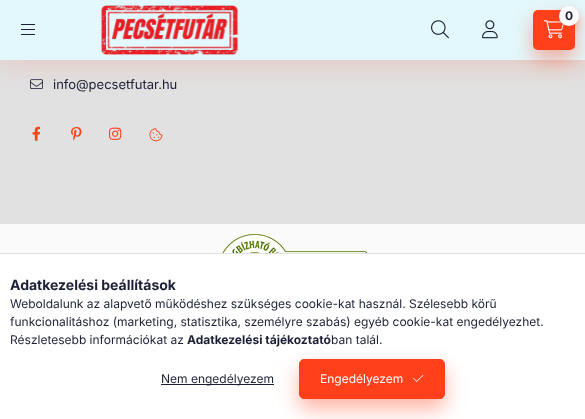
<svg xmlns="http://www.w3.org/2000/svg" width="585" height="419">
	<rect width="100%" height="100%" fill="#FAFAFA" />
	<rect x="0" y="60" width="585" height="164" fill="#E1E1E1" />
	<image x="30" y="79" width="13" height="10" href="assets/img5.png" />
	<rect x="0" y="0" width="585" height="60" fill="#FF401B" fill-opacity="0.2" filter="blur(15px)" />
	<rect x="0" y="0" width="585" height="60" fill="#E3F8FC" />
	<rect x="21" y="24" width="14" height="1" fill="#1B2036" />
	<rect x="21" y="29" width="14" height="1" fill="#1B2036" />
	<rect x="21" y="34" width="14" height="1" fill="#1B2036" />
	<image x="101" y="5" width="138" height="50" href="assets/img1.png" />
	<rect x="533" y="20" width="42" height="40" rx="5" fill="#FF401B" fill-opacity="0.4" filter="blur(10px)" />
	<rect x="533" y="10" width="42" height="40" rx="5" fill="#FF401B" />
	<image x="544" y="20" width="20" height="19" href="assets/img2.png" />
	<rect x="559" y="11" width="20" height="20" rx="10" fill="#FF401B" fill-opacity="0.4" filter="blur(5px)" />
	<circle cx="569" cy="16" r="10" fill="#FFFFFF" />
	<text x="565" y="20" font-family="Inter" font-size="12" font-weight="700" fill="#1B2036">0</text>
	<image x="431" y="20" width="18" height="19" href="assets/img3.png" />
	<image x="482" y="20" width="16" height="19" href="assets/img4.png" />
	<text x="53" y="89" font-family="Inter" font-size="13" fill="#1B2036">info@pecsetfutar.hu</text>
	<image x="32" y="126" width="9" height="15" href="assets/img6.png" />
	<image x="71" y="126" width="11" height="15" href="assets/img7.png" />
	<image x="109" y="127" width="13" height="13" href="assets/img8.png" />
	<image x="149" y="128" width="14" height="14" href="assets/img9.png" />
	<image x="222" y="234" width="146" height="19" href="assets/img10.png" />
	<rect x="0" y="254" width="585" height="165" fill="#FFFFFF" />
	<rect x="0" y="253" width="585" height="1" fill="#E1E1E1" />
	<text x="10" y="290" font-family="Inter" font-size="14" font-weight="700" fill="#1B2036">Adatkezelési beállítások</text>
	<g font-family="Inter" font-size="12" fill="#1B2036">
		<text x="10" y="308">Weboldalunk az alapvető működéshez szükséges cookie-kat használ. Szélesebb körű</text>
		<text x="10" y="326">funkcionalitáshoz (marketing, statisztika, személyre szabás) egyéb cookie-kat engedélyezhet.</text>
		<text x="10" y="344">Részletesebb információkat az</text>
	</g>
	<text x="187" y="344" font-family="Inter" font-size="12" font-weight="700" fill="#1B2036">Adatkezelési tájékoztató</text>
	<text x="331" y="344" font-family="Inter" font-size="12" fill="#1B2036">ban talál.</text>
	<rect x="161" y="384" width="113" height="1" fill="#1B2036" />
	<text x="161" y="383" font-family="Inter" font-size="12" fill="#1B2036">Nem engedélyezem</text>
	<rect x="299" y="369" width="146" height="40" rx="5" fill="#FF401B" fill-opacity="0.4" filter="blur(10px)" />
	<rect x="299.5" y="359.5" width="145" height="39" rx="4.5" fill="#FF401B" stroke="#FF401B" />
	<text x="320" y="383" font-family="Inter" font-size="12" fill="#FFFFFF">Engedélyezem</text>
	<image x="413" y="374" width="11" height="8" href="assets/img11.png" />
</svg>
